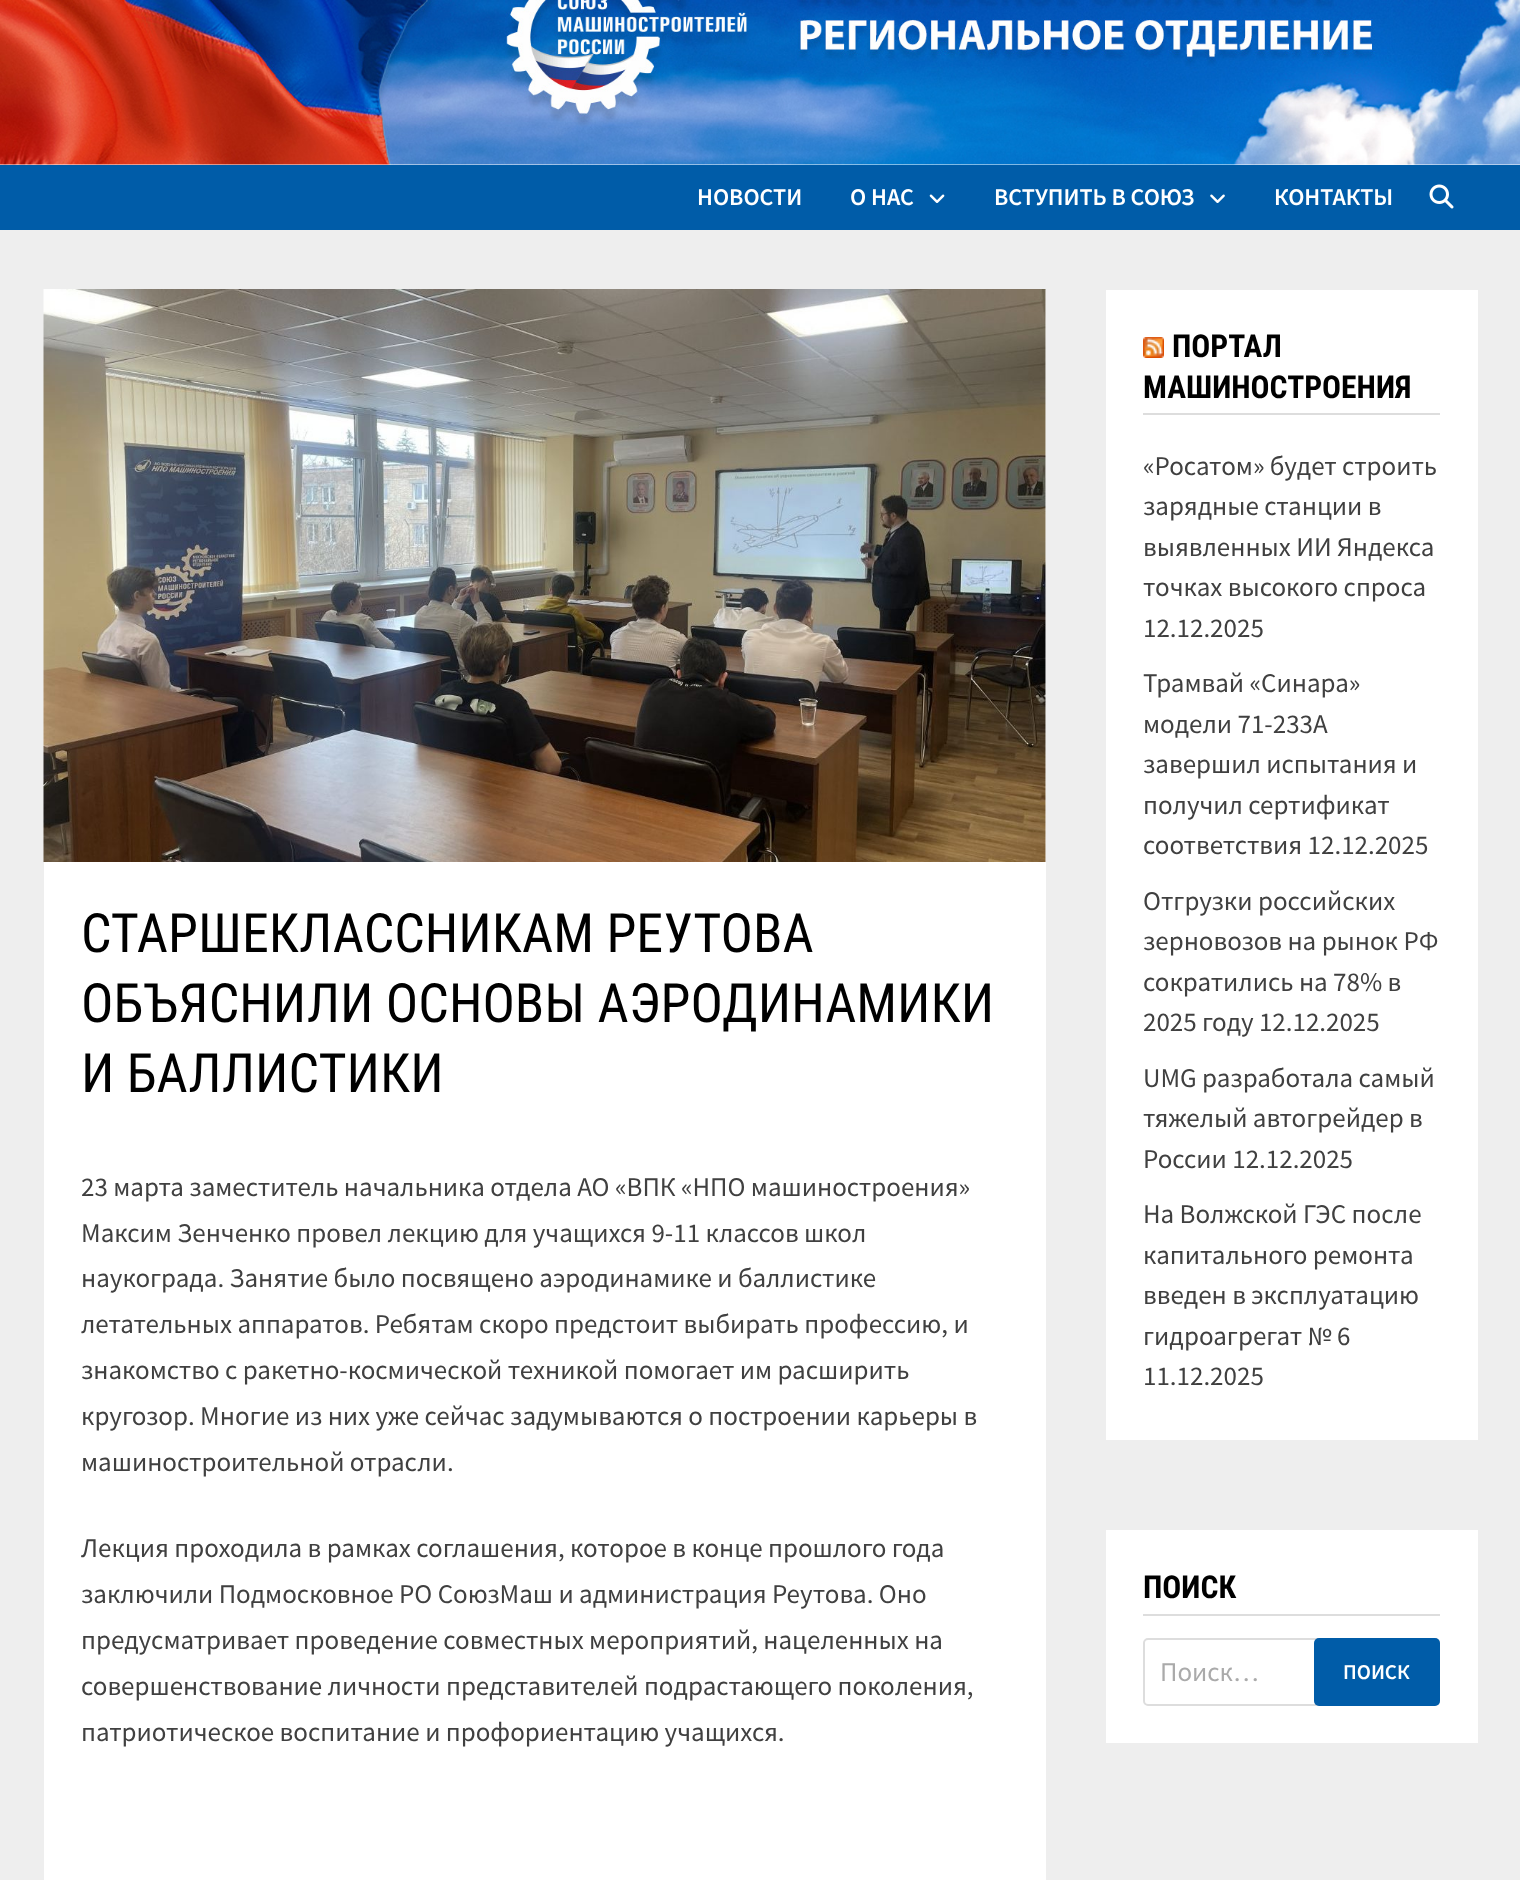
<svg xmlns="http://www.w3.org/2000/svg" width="1520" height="1880">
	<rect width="100%" height="100%" fill="#FFFFFF" />
	<image x="0" y="0" width="1520" height="165" href="assets/img1.png" />
	<rect x="0" y="165" width="1520" height="65" fill="#005CA8" />
	<g font-family="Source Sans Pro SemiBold" font-size="24" font-weight="600" fill="#FFFFFF">
		<text x="697" y="205">НОВОСТИ</text>
		<text x="850" y="205">О НАС</text>
	</g>
	<image x="929" y="194" width="16" height="9" href="assets/img2.png" />
	<text x="994" y="205" font-family="Source Sans Pro SemiBold" font-size="24" font-weight="600" fill="#FFFFFF">ВСТУПИТЬ В СОЮЗ</text>
	<image x="1210" y="194" width="15" height="9" href="assets/img3.png" />
	<text x="1274" y="205" font-family="Source Sans Pro SemiBold" font-size="24" font-weight="600" fill="#FFFFFF">КОНТАКТЫ</text>
	<image x="1429" y="184" width="25" height="25" href="assets/img4.png" />
	<rect x="0" y="230" width="1520" height="1650" fill="#EEEEEE" />
	<rect x="44" y="290" width="1002" height="1590" fill="#FFFFFF" />
	<image x="43" y="289" width="1003" height="573" href="assets/img5.png" />
	<g font-family="Roboto Condensed" font-size="54" fill="#000000">
		<text x="81" y="952">СТАРШЕКЛАССНИКАМ РЕУТОВА</text>
		<text x="81" y="1022">ОБЪЯСНИЛИ ОСНОВЫ АЭРОДИНАМИКИ</text>
		<text x="81" y="1092">И БАЛЛИСТИКИ</text>
	</g>
	<g font-family="Source Sans Pro" font-size="27" fill="#404040">
		<text x="81" y="1196">23 марта заместитель начальника отдела АО «ВПК «НПО машиностроения»</text>
		<text x="81" y="1242">Максим Зенченко провел лекцию для учащихся 9-11 классов школ</text>
		<text x="81" y="1287">наукограда. Занятие было посвящено аэродинамике и баллистике</text>
		<text x="81" y="1333">летательных аппаратов. Ребятам скоро предстоит выбирать профессию, и</text>
		<text x="81" y="1379">знакомство с ракетно-космической техникой помогает им расширить</text>
		<text x="81" y="1425">кругозор. Многие из них уже сейчас задумываются о построении карьеры в</text>
		<text x="81" y="1471">машиностроительной отрасли.</text>
		<text x="81" y="1557">Лекция проходила в рамках соглашения, которое в конце прошлого года</text>
		<text x="81" y="1603">заключили Подмосковное РО СоюзМаш и администрация Реутова. Оно</text>
		<text x="81" y="1649">предусматривает проведение совместных мероприятий, нацеленных на</text>
		<text x="81" y="1695">совершенствование личности представителей подрастающего поколения,</text>
		<text x="81" y="1741">патриотическое воспитание и профориентацию учащихся.</text>
	</g>
	<rect x="1106" y="290" width="372" height="1150" fill="#FFFFFF" />
	<rect x="1143" y="413" width="297" height="2" fill="#DDDDDD" />
	<image x="1143" y="337" width="21" height="21" href="assets/img6.png" />
	<g font-family="Roboto Condensed" font-size="31.5" font-weight="700" fill="#000000">
		<text x="1172" y="357">ПОРТАЛ</text>
		<text x="1143" y="398">МАШИНОСТРОЕНИЯ</text>
	</g>
	<g font-family="Source Sans Pro" font-size="27" fill="#404040">
		<text x="1143" y="475">«Росатом» будет строить</text>
		<text x="1143" y="515">зарядные станции в</text>
		<text x="1143" y="556">выявленных ИИ Яндекса</text>
		<text x="1143" y="596">точках высокого спроса</text>
		<text x="1143" y="637">12.12.2025</text>
		<text x="1143" y="692">Трамвай «Синара»</text>
		<text x="1143" y="733">модели 71-233А</text>
		<text x="1143" y="773">завершил испытания и</text>
		<text x="1143" y="814">получил сертификат</text>
		<text x="1143" y="854">соответствия 12.12.2025</text>
		<text x="1143" y="910">Отгрузки российских</text>
		<text x="1143" y="950">зерновозов на рынок РФ</text>
		<text x="1143" y="991">сократились на 78% в</text>
		<text x="1143" y="1031">2025 году 12.12.2025</text>
		<text x="1143" y="1087">UMG разработала самый</text>
		<text x="1143" y="1127">тяжелый автогрейдер в</text>
		<text x="1143" y="1168">России 12.12.2025</text>
		<text x="1143" y="1223">На Волжской ГЭС после</text>
		<text x="1143" y="1264">капитального ремонта</text>
		<text x="1143" y="1304">введен в эксплуатацию</text>
		<text x="1143" y="1345">гидроагрегат № 6</text>
		<text x="1143" y="1385">11.12.2025</text>
	</g>
	<rect x="1106" y="1530" width="372" height="213" fill="#FFFFFF" />
	<rect x="1143" y="1614" width="297" height="2" fill="#DDDDDD" />
	<text x="1143" y="1598" font-family="Roboto Condensed" font-size="31.5" font-weight="700" fill="#000000">ПОИСК</text>
	<rect x="1144" y="1639" width="295" height="66" rx="4" fill="none" stroke="#DDDDDD" stroke-width="2" />
	<text x="1160" y="1681" font-family="Source Sans Pro" font-size="27" fill="#AAAAAA">Поиск…</text>
	<rect x="1314" y="1638" width="126" height="68" rx="5" fill="#005CA8" />
	<text x="1343" y="1679" font-family="Source Sans Pro SemiBold" font-size="21" font-weight="600" fill="#FFFFFF">ПОИСК</text>
</svg>
